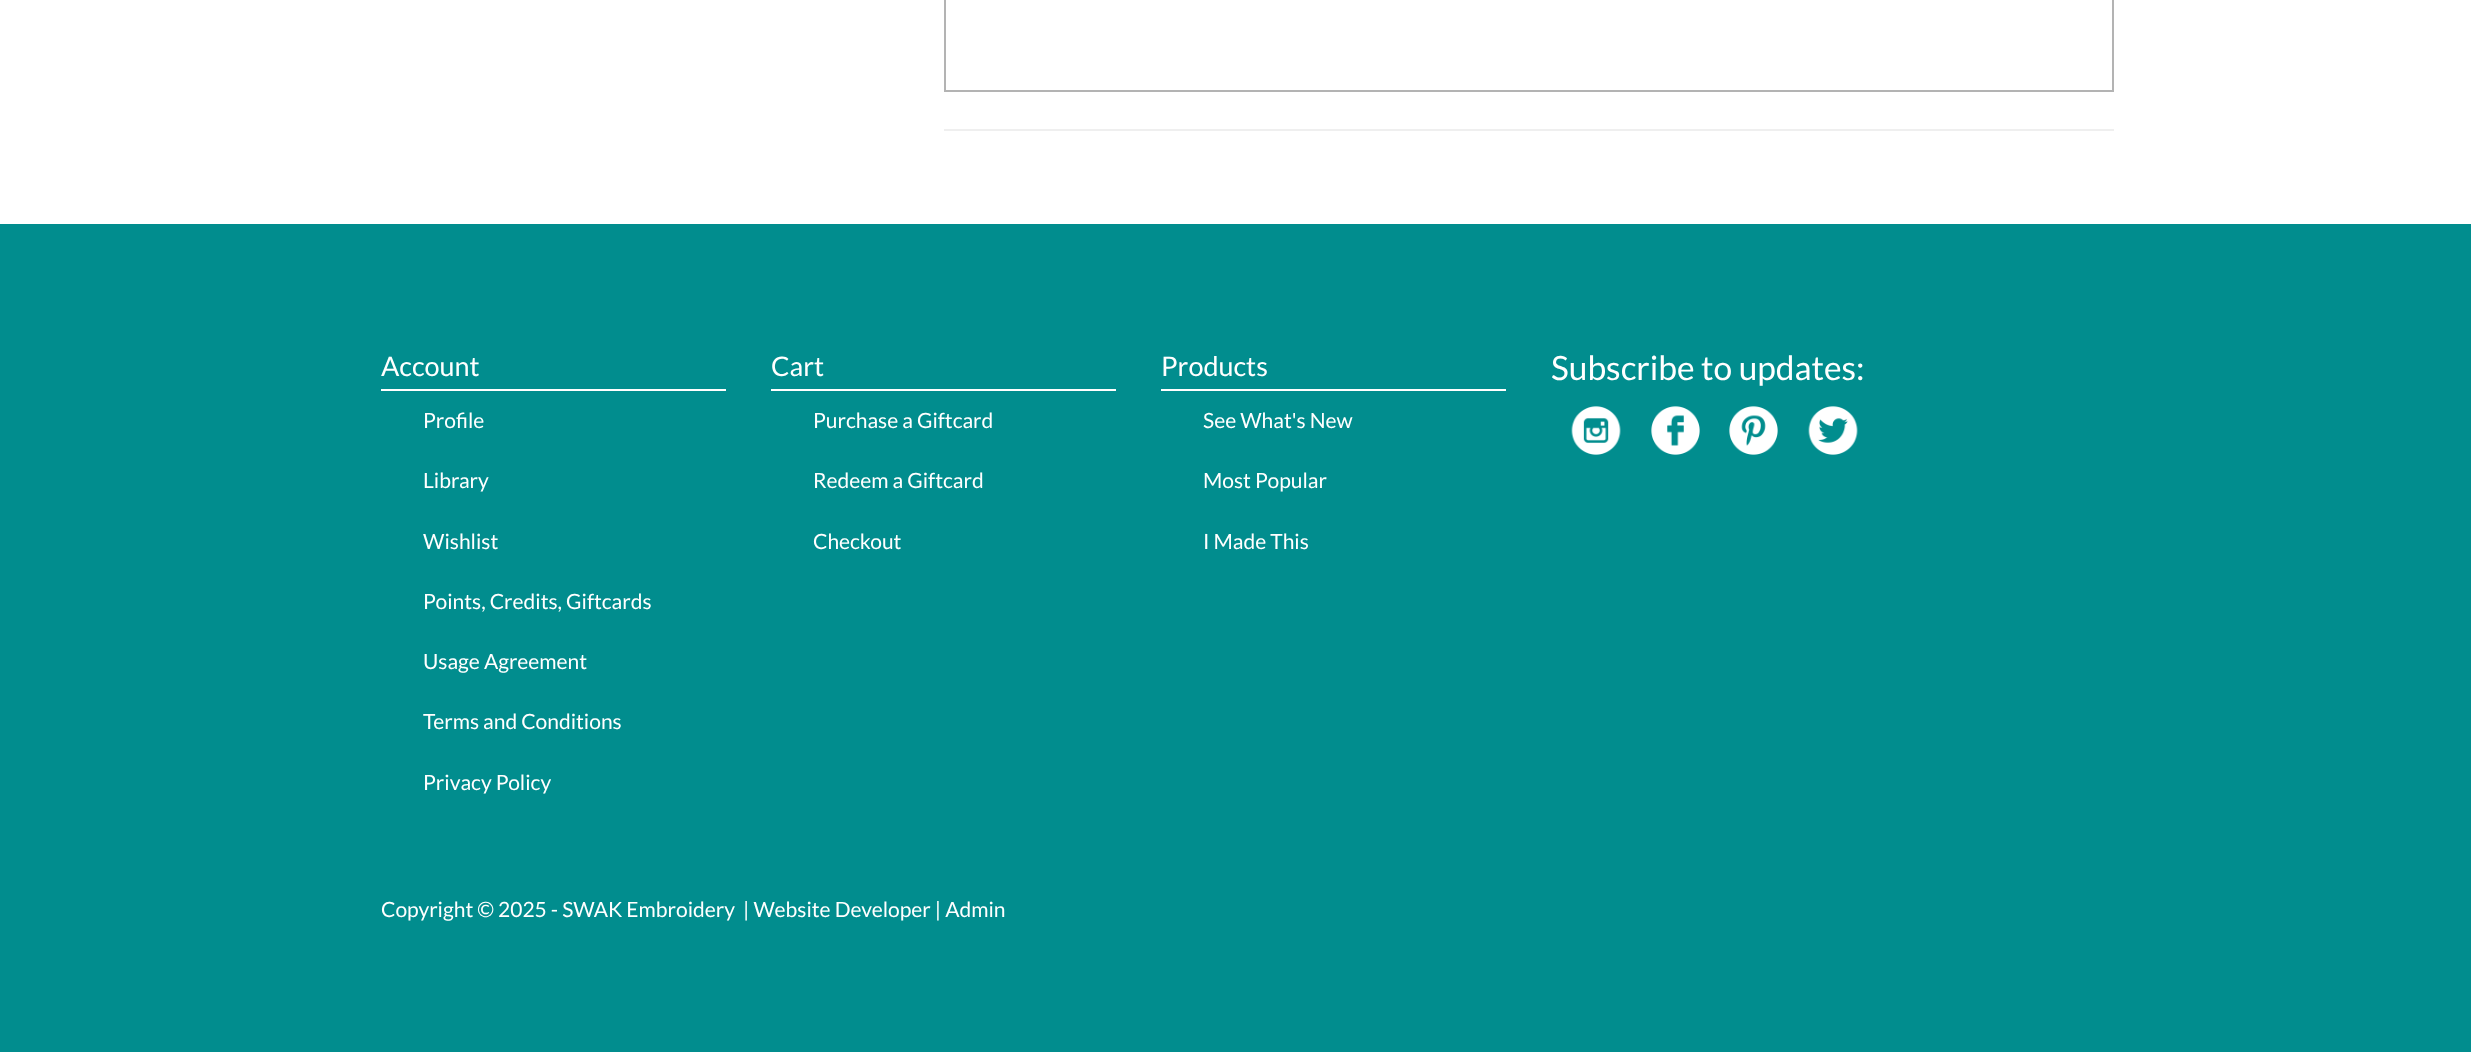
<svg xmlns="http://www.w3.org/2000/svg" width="2471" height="1052">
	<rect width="100%" height="100%" fill="#FFFFFF" />
	<rect x="945" y="-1" width="1168" height="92" fill="none" stroke="#B3B3B3" stroke-width="2" />
	<rect x="944" y="129" width="1170" height="2" fill="#EFEFEF" />
	<rect x="0" y="224" width="2471" height="828" fill="#018D8E" />
	<rect x="381" y="389" width="345" height="2" fill="#FFFFFF" />
	<text x="381" y="376" font-family="Lato" font-size="27" fill="#FFFFFF">Account</text>
	<g font-family="Lato" font-size="21" fill="#FFFFFF">
		<text x="423" y="428">Profile</text>
		<text x="423" y="488">Library</text>
		<text x="423" y="549">Wishlist</text>
		<text x="423" y="609">Points, Credits, Giftcards</text>
		<text x="423" y="669">Usage Agreement</text>
		<text x="423" y="729">Terms and Conditions</text>
		<text x="423" y="790">Privacy Policy</text>
	</g>
	<rect x="771" y="389" width="345" height="2" fill="#FFFFFF" />
	<text x="771" y="376" font-family="Lato" font-size="27" fill="#FFFFFF">Cart</text>
	<g font-family="Lato" font-size="21" fill="#FFFFFF">
		<text x="813" y="428">Purchase a Giftcard</text>
		<text x="813" y="488">Redeem a Giftcard</text>
		<text x="813" y="549">Checkout</text>
	</g>
	<rect x="1161" y="389" width="345" height="2" fill="#FFFFFF" />
	<text x="1161" y="376" font-family="Lato" font-size="27" fill="#FFFFFF">Products</text>
	<g font-family="Lato" font-size="21" fill="#FFFFFF">
		<text x="1203" y="428">See What's New</text>
		<text x="1203" y="488">Most Popular</text>
		<text x="1203" y="549">I Made This</text>
	</g>
	<text x="1551" y="380" font-family="Lato" font-size="33.5" fill="#FFFFFF">Subscribe to updates:</text>
	<image x="1571" y="406" width="50" height="49" href="assets/img1.png" />
	<image x="1651" y="406" width="49" height="49" href="assets/img2.png" />
	<image x="1729" y="406" width="49" height="49" href="assets/img3.png" />
	<image x="1808" y="406" width="50" height="49" href="assets/img4.png" />
	<text x="381" y="917" font-family="Lato" font-size="21" fill="#FFFFFF" xml:space="preserve">Copyright © 2025 - SWAK Embroidery  | Website Developer | Admin</text>
</svg>
